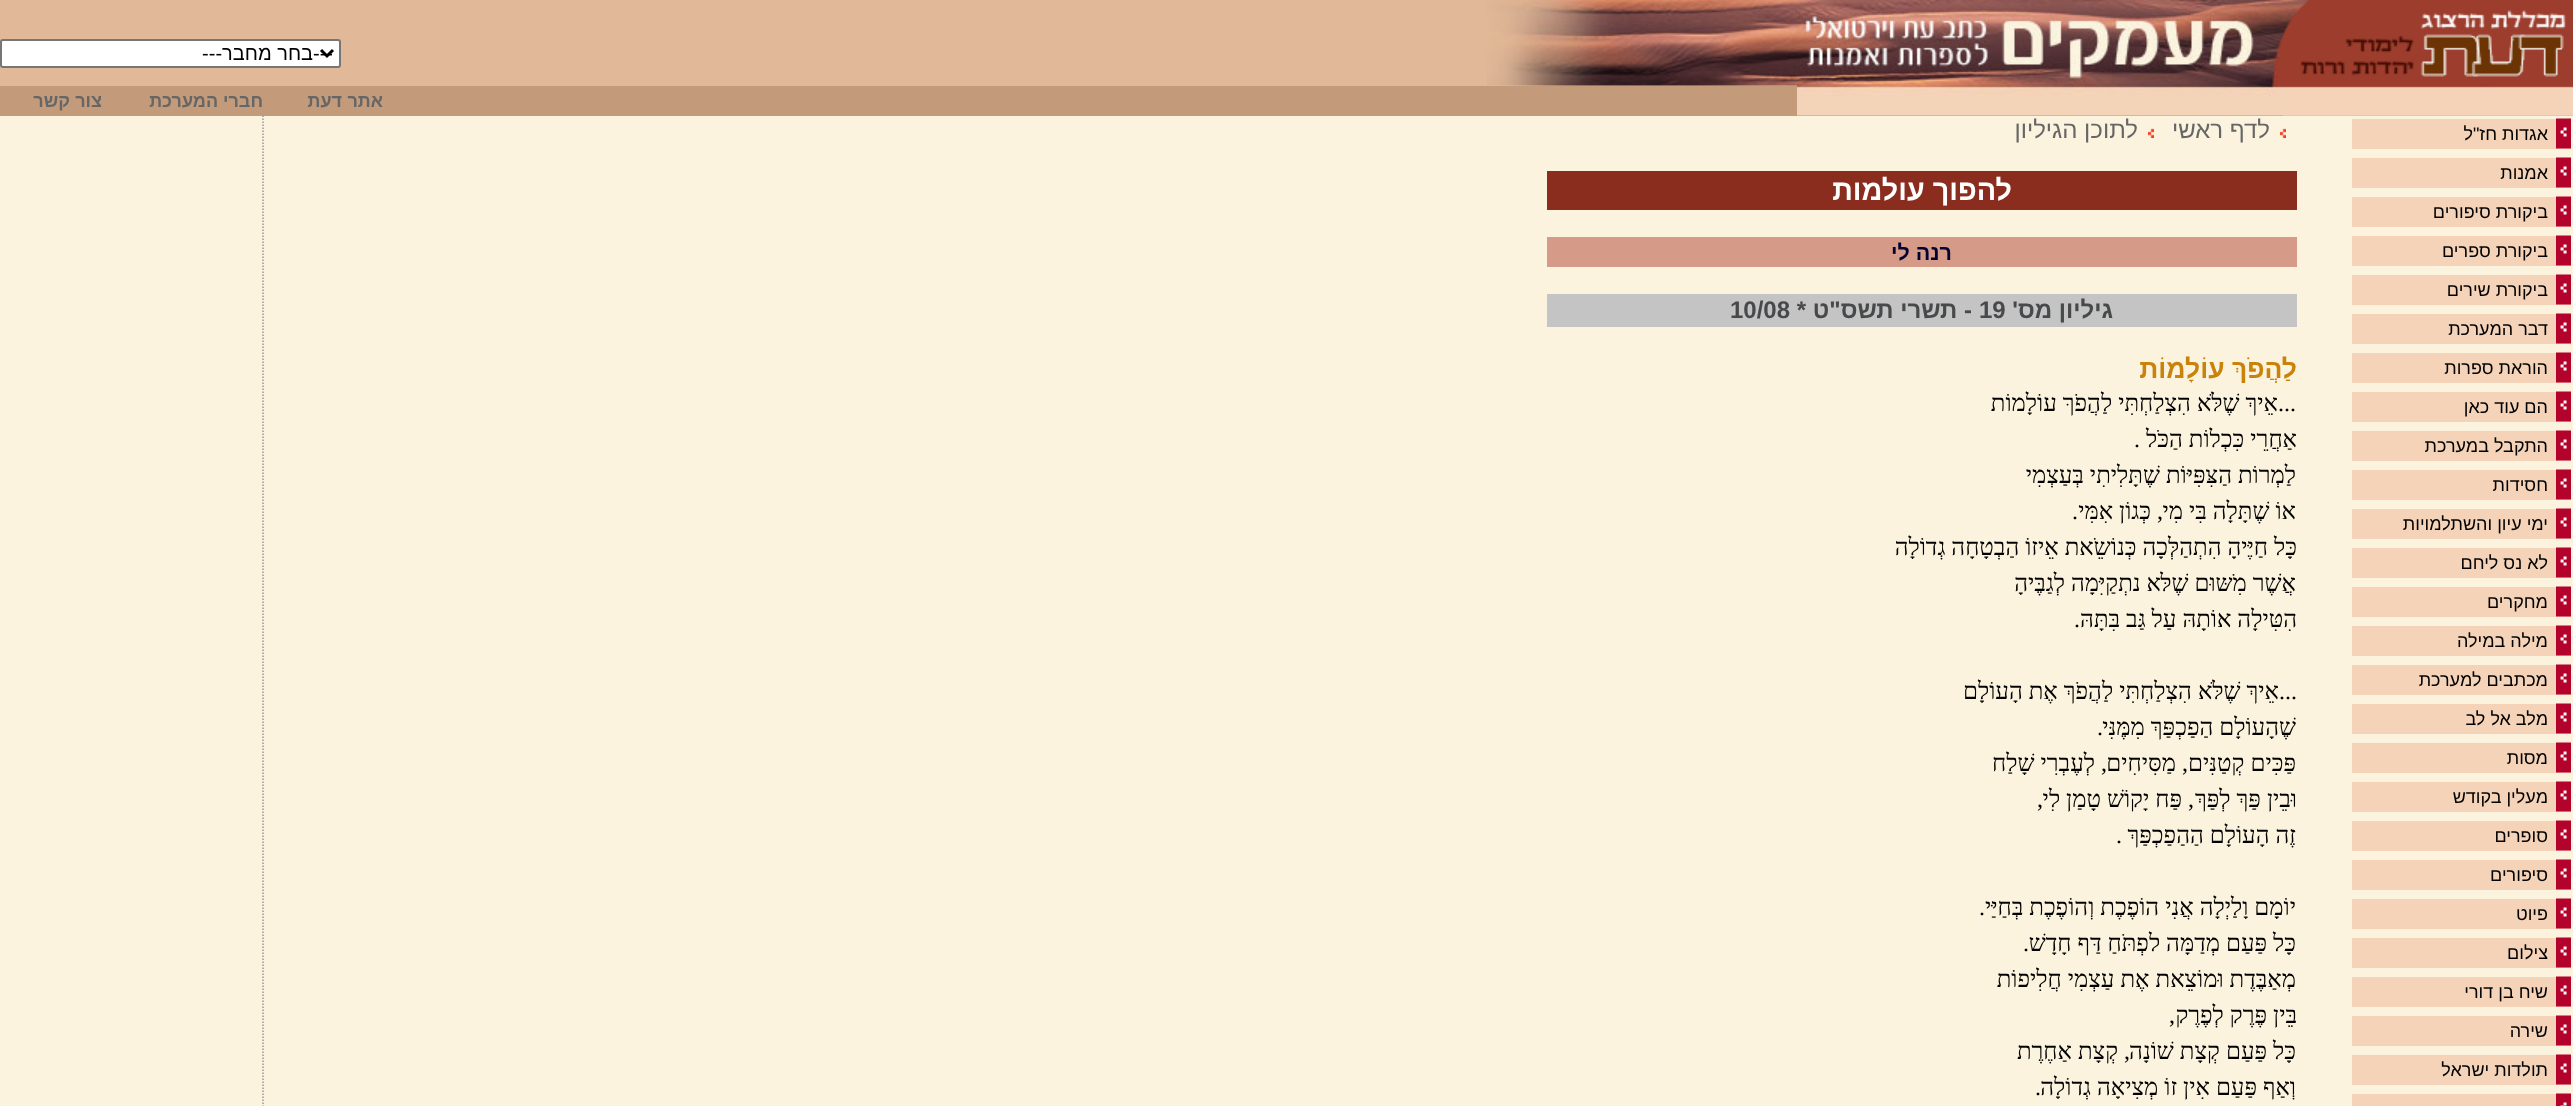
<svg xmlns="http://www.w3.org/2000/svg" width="2573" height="1106">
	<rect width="100%" height="100%" fill="#FBF3DE" />
	<rect x="2283" y="115" width="290" height="1" fill="#E1B998" />
	<image x="2283" y="0" width="290" height="116" href="assets/img1.png" />
	<rect x="1797" y="115" width="486" height="1" fill="#C39B7A" />
	<image x="1797" y="0" width="486" height="116" href="assets/img2.png" />
	<rect x="0" y="0" width="1797" height="86" fill="#E1B998" />
	<image x="1487" y="0" width="310" height="86" href="assets/img3.png" />
	<rect x="1" y="40" width="339" height="27" rx="2" fill="#FFFFFF" stroke="#767676" stroke-width="2" />
	<path d="M321 50L327 56L333 50" fill="none" stroke="#000000" stroke-width="3" />
	<text x="333" y="60" font-family="Liberation Sans" font-size="20" direction="rtl" fill="#000000">---בחר מחבר---</text>
	<rect x="0" y="86" width="1797" height="30" fill="#C39B7A" />
	<g font-family="Liberation Sans" font-size="18" font-weight="700" direction="rtl" fill="#666666">
		<text x="383" y="107">אתר</text>
		<text x="342" y="107">דעת</text>
		<text x="263" y="107">חברי המערכת</text>
		<text x="102" y="107">צור</text>
		<text x="70" y="107">קשר</text>
	</g>
	<rect x="2352" y="119" width="219" height="30" fill="#F4D3B8" />
	<image x="2556" y="118" width="15" height="31" href="assets/img4.png" />
	<text x="2548" y="140" font-family="Liberation Sans" font-size="18" direction="rtl" fill="#000000">אגדות חז"ל</text>
	<rect x="2352" y="158" width="219" height="30" fill="#F4D3B8" />
	<image x="2556" y="157" width="15" height="31" href="assets/img4.png" />
	<text x="2548" y="179" font-family="Liberation Sans" font-size="18" direction="rtl" fill="#000000">אמנות</text>
	<rect x="2352" y="197" width="219" height="30" fill="#F4D3B8" />
	<image x="2556" y="196" width="15" height="31" href="assets/img4.png" />
	<text x="2548" y="218" font-family="Liberation Sans" font-size="18" direction="rtl" fill="#000000">ביקורת סיפורים</text>
	<rect x="2352" y="236" width="219" height="30" fill="#F4D3B8" />
	<image x="2556" y="235" width="15" height="31" href="assets/img4.png" />
	<text x="2548" y="257" font-family="Liberation Sans" font-size="18" direction="rtl" fill="#000000">ביקורת ספרים</text>
	<rect x="2352" y="275" width="219" height="30" fill="#F4D3B8" />
	<image x="2556" y="274" width="15" height="31" href="assets/img4.png" />
	<text x="2548" y="296" font-family="Liberation Sans" font-size="18" direction="rtl" fill="#000000">ביקורת שירים</text>
	<rect x="2352" y="314" width="219" height="30" fill="#F4D3B8" />
	<image x="2556" y="313" width="15" height="31" href="assets/img4.png" />
	<text x="2548" y="335" font-family="Liberation Sans" font-size="18" direction="rtl" fill="#000000">דבר המערכת</text>
	<rect x="2352" y="353" width="219" height="30" fill="#F4D3B8" />
	<image x="2556" y="352" width="15" height="31" href="assets/img4.png" />
	<text x="2548" y="374" font-family="Liberation Sans" font-size="18" direction="rtl" fill="#000000">הוראת ספרות</text>
	<rect x="2352" y="392" width="219" height="30" fill="#F4D3B8" />
	<image x="2556" y="391" width="15" height="31" href="assets/img4.png" />
	<text x="2548" y="413" font-family="Liberation Sans" font-size="18" direction="rtl" fill="#000000">הם עוד כאן</text>
	<rect x="2352" y="431" width="219" height="30" fill="#F4D3B8" />
	<image x="2556" y="430" width="15" height="31" href="assets/img4.png" />
	<text x="2548" y="452" font-family="Liberation Sans" font-size="18" direction="rtl" fill="#000000">התקבל במערכת</text>
	<rect x="2352" y="470" width="219" height="30" fill="#F4D3B8" />
	<image x="2556" y="469" width="15" height="31" href="assets/img4.png" />
	<text x="2548" y="491" font-family="Liberation Sans" font-size="18" direction="rtl" fill="#000000">חסידות</text>
	<rect x="2352" y="509" width="219" height="30" fill="#F4D3B8" />
	<image x="2556" y="508" width="15" height="31" href="assets/img4.png" />
	<text x="2548" y="530" font-family="Liberation Sans" font-size="18" direction="rtl" fill="#000000">ימי עיון והשתלמויות</text>
	<rect x="2352" y="548" width="219" height="30" fill="#F4D3B8" />
	<image x="2556" y="547" width="15" height="31" href="assets/img4.png" />
	<text x="2548" y="569" font-family="Liberation Sans" font-size="18" direction="rtl" fill="#000000">לא נס ליחם</text>
	<rect x="2352" y="587" width="219" height="30" fill="#F4D3B8" />
	<image x="2556" y="586" width="15" height="31" href="assets/img4.png" />
	<text x="2548" y="608" font-family="Liberation Sans" font-size="18" direction="rtl" fill="#000000">מחקרים</text>
	<rect x="2352" y="626" width="219" height="30" fill="#F4D3B8" />
	<image x="2556" y="625" width="15" height="31" href="assets/img4.png" />
	<text x="2548" y="647" font-family="Liberation Sans" font-size="18" direction="rtl" fill="#000000">מילה במילה</text>
	<rect x="2352" y="665" width="219" height="30" fill="#F4D3B8" />
	<image x="2556" y="664" width="15" height="31" href="assets/img4.png" />
	<text x="2548" y="686" font-family="Liberation Sans" font-size="18" direction="rtl" fill="#000000">מכתבים למערכת</text>
	<rect x="2352" y="704" width="219" height="30" fill="#F4D3B8" />
	<image x="2556" y="703" width="15" height="31" href="assets/img4.png" />
	<text x="2548" y="725" font-family="Liberation Sans" font-size="18" direction="rtl" fill="#000000">מלב אל לב</text>
	<rect x="2352" y="743" width="219" height="30" fill="#F4D3B8" />
	<image x="2556" y="742" width="15" height="31" href="assets/img4.png" />
	<text x="2548" y="764" font-family="Liberation Sans" font-size="18" direction="rtl" fill="#000000">מסות</text>
	<rect x="2352" y="782" width="219" height="30" fill="#F4D3B8" />
	<image x="2556" y="781" width="15" height="31" href="assets/img4.png" />
	<text x="2548" y="803" font-family="Liberation Sans" font-size="18" direction="rtl" fill="#000000">מעלין בקודש</text>
	<rect x="2352" y="821" width="219" height="30" fill="#F4D3B8" />
	<image x="2556" y="820" width="15" height="31" href="assets/img4.png" />
	<text x="2548" y="842" font-family="Liberation Sans" font-size="18" direction="rtl" fill="#000000">סופרים</text>
	<rect x="2352" y="860" width="219" height="30" fill="#F4D3B8" />
	<image x="2556" y="859" width="15" height="31" href="assets/img4.png" />
	<text x="2548" y="881" font-family="Liberation Sans" font-size="18" direction="rtl" fill="#000000">סיפורים</text>
	<rect x="2352" y="899" width="219" height="30" fill="#F4D3B8" />
	<image x="2556" y="898" width="15" height="31" href="assets/img4.png" />
	<text x="2548" y="920" font-family="Liberation Sans" font-size="18" direction="rtl" fill="#000000">פיוט</text>
	<rect x="2352" y="938" width="219" height="30" fill="#F4D3B8" />
	<image x="2556" y="937" width="15" height="31" href="assets/img4.png" />
	<text x="2548" y="959" font-family="Liberation Sans" font-size="18" direction="rtl" fill="#000000">צילום</text>
	<rect x="2352" y="977" width="219" height="30" fill="#F4D3B8" />
	<image x="2556" y="976" width="15" height="31" href="assets/img4.png" />
	<text x="2548" y="998" font-family="Liberation Sans" font-size="18" direction="rtl" fill="#000000">שיח בן דורי</text>
	<rect x="2352" y="1016" width="219" height="30" fill="#F4D3B8" />
	<image x="2556" y="1015" width="15" height="31" href="assets/img4.png" />
	<text x="2548" y="1037" font-family="Liberation Sans" font-size="18" direction="rtl" fill="#000000">שירה</text>
	<rect x="2352" y="1055" width="219" height="30" fill="#F4D3B8" />
	<image x="2556" y="1054" width="15" height="31" href="assets/img4.png" />
	<text x="2548" y="1076" font-family="Liberation Sans" font-size="18" direction="rtl" fill="#000000">תולדות ישראל</text>
	<rect x="2352" y="1094" width="204" height="12" fill="#F4D3B8" />
	<image x="2556" y="1093" width="15" height="13" href="assets/img5.png" />
	<path d="M263 115.5V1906.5" fill="none" stroke="#999999" stroke-width="1.5" stroke-dasharray="1.5 1.5" />
	<image x="2280" y="128" width="6" height="10" href="assets/img6.png" />
	<text x="2270" y="138" font-family="Liberation Sans" font-size="24" direction="rtl" fill="#666666">לדף ראשי</text>
	<image x="2148" y="128" width="6" height="10" href="assets/img6.png" />
	<text x="2138" y="138" font-family="Liberation Sans" font-size="24" direction="rtl" fill="#666666">לתוכן הגיליון</text>
	<rect x="1547" y="171" width="750" height="39" fill="#8A2D1E" />
	<text x="2012" y="200" font-family="Liberation Sans" font-size="28.75" font-weight="700" direction="rtl" fill="#FFFFFF">להפוך עולמות</text>
	<rect x="1547" y="237" width="750" height="30" fill="#D59A88" />
	<text x="1952" y="260" font-family="Liberation Sans" font-size="21.5" font-weight="700" direction="rtl" fill="#000033">רנה לי</text>
	<rect x="1547" y="294" width="750" height="33" fill="#C4C4C4" />
	<text x="2113" y="318" font-family="Liberation Sans" font-size="24" font-weight="700" direction="rtl" fill="#47494A">גיליון מס'</text>
	<text x="1979" y="318" font-family="Liberation Sans" font-size="24" font-weight="700" fill="#47494A">19</text>
	<text x="1972" y="318" font-family="Liberation Sans" font-size="24" font-weight="700" direction="rtl" fill="#47494A">- תשרי תשס"ט *</text>
	<text x="1730" y="318" font-family="Liberation Sans" font-size="24" font-weight="700" fill="#47494A">10/08</text>
	<text x="2297" y="378" font-family="Liberation Sans" font-size="26.5" font-weight="700" direction="rtl" fill="#C9830A">לַהֲפֹךְ עוֹלָמוֹת</text>
	<g font-family="Liberation Serif" font-size="24" direction="rtl" fill="#000000">
		<text x="2296" y="411">...אֵיךְ שֶׁלֹּא הִצְלַחְתִּי לַהֲפֹךּ עוֹלָמוֹת</text>
		<text x="2297" y="447">אַחֲרֵי כִּכְלוֹת הַכֹּל</text>
		<text x="2140" y="447">.</text>
		<text x="2296" y="483">לַמְרוֹת הַצִּפִּיּוֹת שֶׁתָּלִיתִי בְּעַצְמִי</text>
		<text x="2296" y="519">אוֹ שֶׁתָּלָה בִּי מִי</text>
		<text x="2163" y="519">, כְּגוֹן אִמִּי</text>
		<text x="2078" y="519">.</text>
		<text x="2297" y="555">כָּל חַיֶּיהָ הִתְהַלְּכָה כְּנוֹשֵֹאת אֵיזוֹ הַבְטָחָה גְדוֹלָה</text>
		<text x="2296" y="591">אֲשֶׁר מִֹשּוּם שֶׁלּ</text>
		<text x="2161" y="591">א נתְקַיִּמָה לְגַבֶּיהָ</text>
		<text x="2297" y="627">הִטִּילָה אוֹתָהּ עַל גַּב בִּתָּהּ</text>
		<text x="2080" y="627">.</text>
		<text x="2297" y="699">...אֵיךְ שֶׁלֹּא הִצְלַחְתִּי לַהֲפֹךְ אֶת הָעוֹלָם</text>
		<text x="2296" y="735">שֶׁהָעוֹלָם הַפַכְפַּךְ מִמֶּנִּי</text>
		<text x="2103" y="735">.</text>
		<text x="2296" y="771">פַּכִּים קְטַנִּים</text>
		<text x="2188" y="771">, מַסִּיחִים</text>
		<text x="2107" y="771">, לְעֶבְרִי שָׁלַח</text>
		<text x="2297" y="807">וּבֵין פַּךְ לְפַּךְ</text>
		<text x="2194" y="807">, פַּח יָקוֹשׁ טָמַן לִי</text>
		<text x="2043" y="807">,</text>
		<text x="2296" y="843">זֶה הָעוֹלָם הַהַפַכְפַּךְ</text>
	</g>
	<text x="2116" y="843" font-family="Liberation Serif" font-size="24" fill="#000000">.</text>
	<g font-family="Liberation Serif" font-size="24" direction="rtl" fill="#000000">
		<text x="2296" y="915">יוֹמָם וָלַיְלָה אֲנִי הוֹפֶכֶת וְהוֹפֶכֶת בְּחַיַּי</text>
		<text x="1985" y="915">.</text>
		<text x="2296" y="951">כָּל פַּעַם מְדַמָּה לפְתֹּחַ דַּף חָדָשׁ</text>
		<text x="2029" y="951">.</text>
		<text x="2296" y="987">מְאַבֶּדֶת וּמוֹצֵאת אֶת עַצְמִי חֲלִיפוֹת</text>
		<text x="2297" y="1023">בֵּין פֶּרֶק לְפֶרֶק</text>
		<text x="2175" y="1023">,</text>
		<text x="2296" y="1059">כָּל פַּעַם קְצָת שׁוֹנָה</text>
		<text x="2130" y="1059">, קְצָת אַחֶרֶת</text>
		<text x="2296" y="1095">וְאַף פַּעַם אִין זוֹ מְצִיאָה גְדוֹלָה</text>
	</g>
	<text x="2035" y="1095" font-family="Liberation Serif" font-size="24" fill="#000000">.</text>
</svg>
